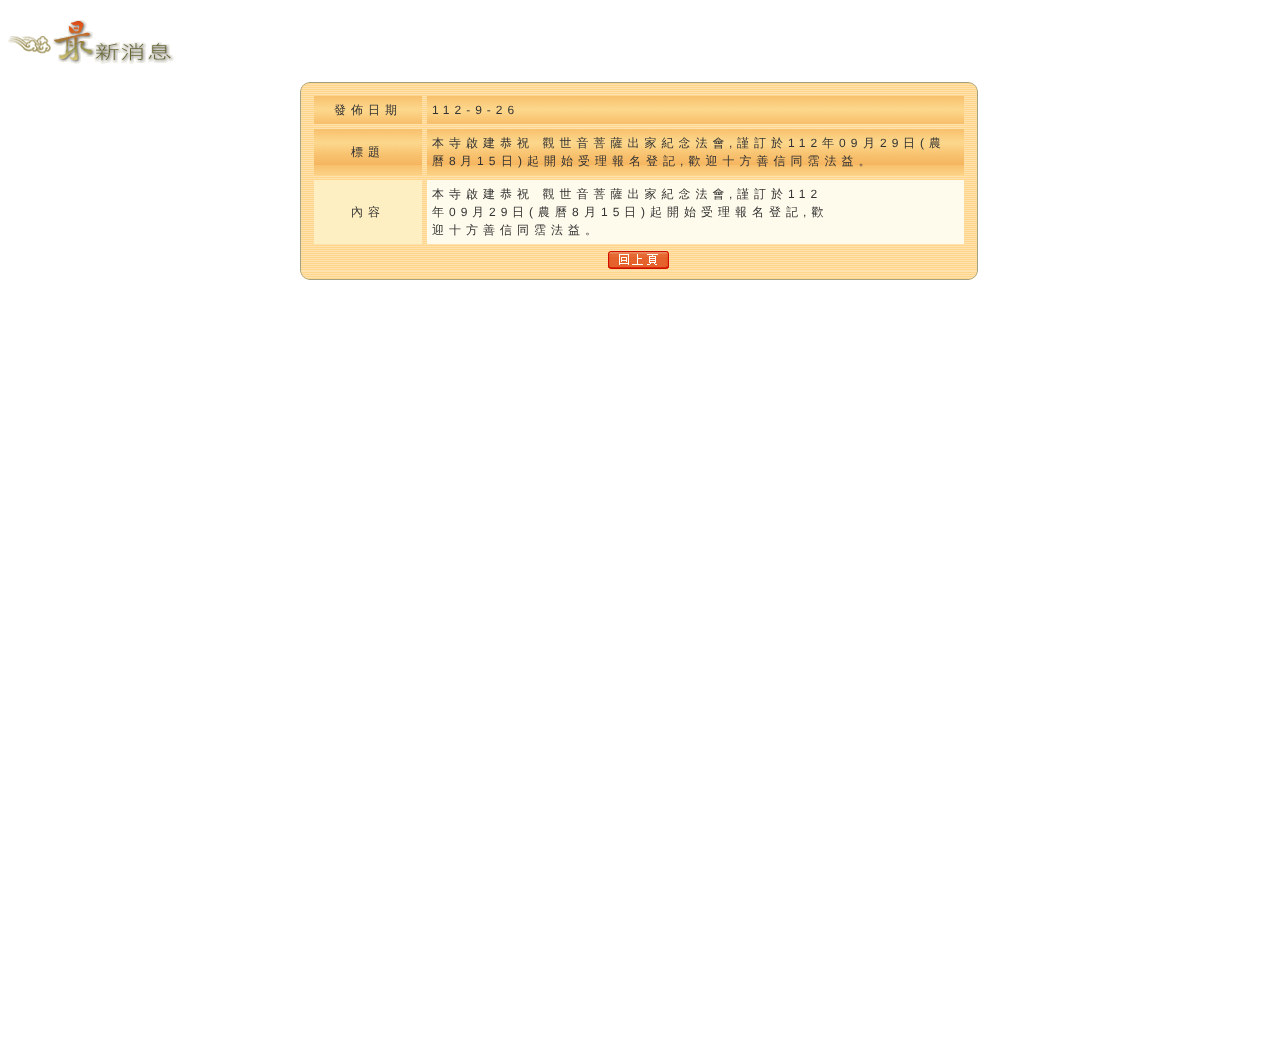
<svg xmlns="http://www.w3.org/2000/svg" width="1277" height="1054">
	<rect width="100%" height="100%" fill="#FFFFFF" />
	<image x="8" y="20" width="166" height="44" href="assets/img1.png" />
	<image x="300" y="82" width="678" height="9" href="assets/img2.png" />
	<image x="300" y="91" width="678" height="180" href="assets/img3.png" />
	<image x="314" y="96" width="108" height="28" href="assets/img4.png" />
	<text x="334" y="114" font-family="WenQuanYi Zen Hei" font-size="12" font-weight="500" letter-spacing="5" fill="#333333">發佈日期</text>
	<image x="427" y="96" width="537" height="28" href="assets/img5.png" />
	<text x="432" y="114" font-family="Liberation Sans" font-size="12" letter-spacing="5" fill="#333333">112-9-26</text>
	<image x="314" y="129" width="108" height="46" href="assets/img6.png" />
	<text x="351" y="156" font-family="WenQuanYi Zen Hei" font-size="12" font-weight="500" letter-spacing="5" fill="#333333">標題</text>
	<image x="427" y="129" width="537" height="46" href="assets/img7.png" />
	<text x="432" y="147" font-family="WenQuanYi Zen Hei" font-size="12" font-weight="500" letter-spacing="5" fill="#333333">本寺啟建恭祝 觀世音菩薩出家紀念法會</text>
	<text x="729" y="147" font-family="Liberation Sans" font-size="12" letter-spacing="5" fill="#333333">,</text>
	<text x="737" y="147" font-family="WenQuanYi Zen Hei" font-size="12" font-weight="500" letter-spacing="5" fill="#333333">謹訂於</text>
	<text x="788" y="147" font-family="Liberation Sans" font-size="12" letter-spacing="5" fill="#333333">112</text>
	<text x="822" y="147" font-family="WenQuanYi Zen Hei" font-size="12" font-weight="500" letter-spacing="5" fill="#333333">年</text>
	<text x="839" y="147" font-family="Liberation Sans" font-size="12" letter-spacing="5" fill="#333333">09</text>
	<text x="863" y="147" font-family="WenQuanYi Zen Hei" font-size="12" font-weight="500" letter-spacing="5" fill="#333333">月</text>
	<text x="880" y="147" font-family="Liberation Sans" font-size="12" letter-spacing="5" fill="#333333">29</text>
	<text x="903" y="147" font-family="WenQuanYi Zen Hei" font-size="12" font-weight="500" letter-spacing="5" fill="#333333">日</text>
	<text x="920" y="147" font-family="Liberation Sans" font-size="12" letter-spacing="5" fill="#333333">(</text>
	<g font-family="WenQuanYi Zen Hei" font-size="12" font-weight="500" letter-spacing="5" fill="#333333">
		<text x="929" y="147">農</text>
		<text x="432" y="165">曆</text>
	</g>
	<text x="449" y="165" font-family="Liberation Sans" font-size="12" letter-spacing="5" fill="#333333">8</text>
	<text x="460" y="165" font-family="WenQuanYi Zen Hei" font-size="12" font-weight="500" letter-spacing="5" fill="#333333">月</text>
	<text x="477" y="165" font-family="Liberation Sans" font-size="12" letter-spacing="5" fill="#333333">15</text>
	<text x="501" y="165" font-family="WenQuanYi Zen Hei" font-size="12" font-weight="500" letter-spacing="5" fill="#333333">日</text>
	<text x="518" y="165" font-family="Liberation Sans" font-size="12" letter-spacing="5" fill="#333333">)</text>
	<text x="527" y="165" font-family="WenQuanYi Zen Hei" font-size="12" font-weight="500" letter-spacing="5" fill="#333333">起開始受理報名登記 歡迎十方善信同霑法益。</text>
	<text x="680" y="165" font-family="Liberation Sans" font-size="12" letter-spacing="5" fill="#333333">,</text>
	<rect x="314" y="180" width="108" height="64" fill="#FEEFC2" />
	<text x="351" y="216" font-family="WenQuanYi Zen Hei" font-size="12" font-weight="500" letter-spacing="5" fill="#333333">內容</text>
	<rect x="427" y="180" width="537" height="64" fill="#FFFBEC" />
	<text x="432" y="198" font-family="WenQuanYi Zen Hei" font-size="12" font-weight="500" letter-spacing="5" fill="#333333">本寺啟建恭祝 觀世音菩薩出家紀念法會</text>
	<text x="729" y="198" font-family="Liberation Sans" font-size="12" letter-spacing="5" fill="#333333">,</text>
	<text x="737" y="198" font-family="WenQuanYi Zen Hei" font-size="12" font-weight="500" letter-spacing="5" fill="#333333">謹訂於</text>
	<text x="788" y="198" font-family="Liberation Sans" font-size="12" letter-spacing="5" fill="#333333">112</text>
	<text x="432" y="216" font-family="WenQuanYi Zen Hei" font-size="12" font-weight="500" letter-spacing="5" fill="#333333">年</text>
	<text x="449" y="216" font-family="Liberation Sans" font-size="12" letter-spacing="5" fill="#333333">09</text>
	<text x="472" y="216" font-family="WenQuanYi Zen Hei" font-size="12" font-weight="500" letter-spacing="5" fill="#333333">月</text>
	<text x="489" y="216" font-family="Liberation Sans" font-size="12" letter-spacing="5" fill="#333333">29</text>
	<text x="512" y="216" font-family="WenQuanYi Zen Hei" font-size="12" font-weight="500" letter-spacing="5" fill="#333333">日</text>
	<text x="529" y="216" font-family="Liberation Sans" font-size="12" letter-spacing="5" fill="#333333">(</text>
	<text x="538" y="216" font-family="WenQuanYi Zen Hei" font-size="12" font-weight="500" letter-spacing="5" fill="#333333">農曆</text>
	<text x="572" y="216" font-family="Liberation Sans" font-size="12" letter-spacing="5" fill="#333333">8</text>
	<text x="584" y="216" font-family="WenQuanYi Zen Hei" font-size="12" font-weight="500" letter-spacing="5" fill="#333333">月</text>
	<text x="601" y="216" font-family="Liberation Sans" font-size="12" letter-spacing="5" fill="#333333">15</text>
	<text x="624" y="216" font-family="WenQuanYi Zen Hei" font-size="12" font-weight="500" letter-spacing="5" fill="#333333">日</text>
	<text x="641" y="216" font-family="Liberation Sans" font-size="12" letter-spacing="5" fill="#333333">)</text>
	<text x="650" y="216" font-family="WenQuanYi Zen Hei" font-size="12" font-weight="500" letter-spacing="5" fill="#333333">起開始受理報名登記 歡</text>
	<text x="803" y="216" font-family="Liberation Sans" font-size="12" letter-spacing="5" fill="#333333">,</text>
	<text x="432" y="234" font-family="WenQuanYi Zen Hei" font-size="12" font-weight="500" letter-spacing="5" fill="#333333">迎十方善信同霑法益。</text>
	<image x="608" y="251" width="61" height="18" href="assets/img8.png" />
	<image x="300" y="271" width="678" height="9" href="assets/img9.png" />
</svg>
